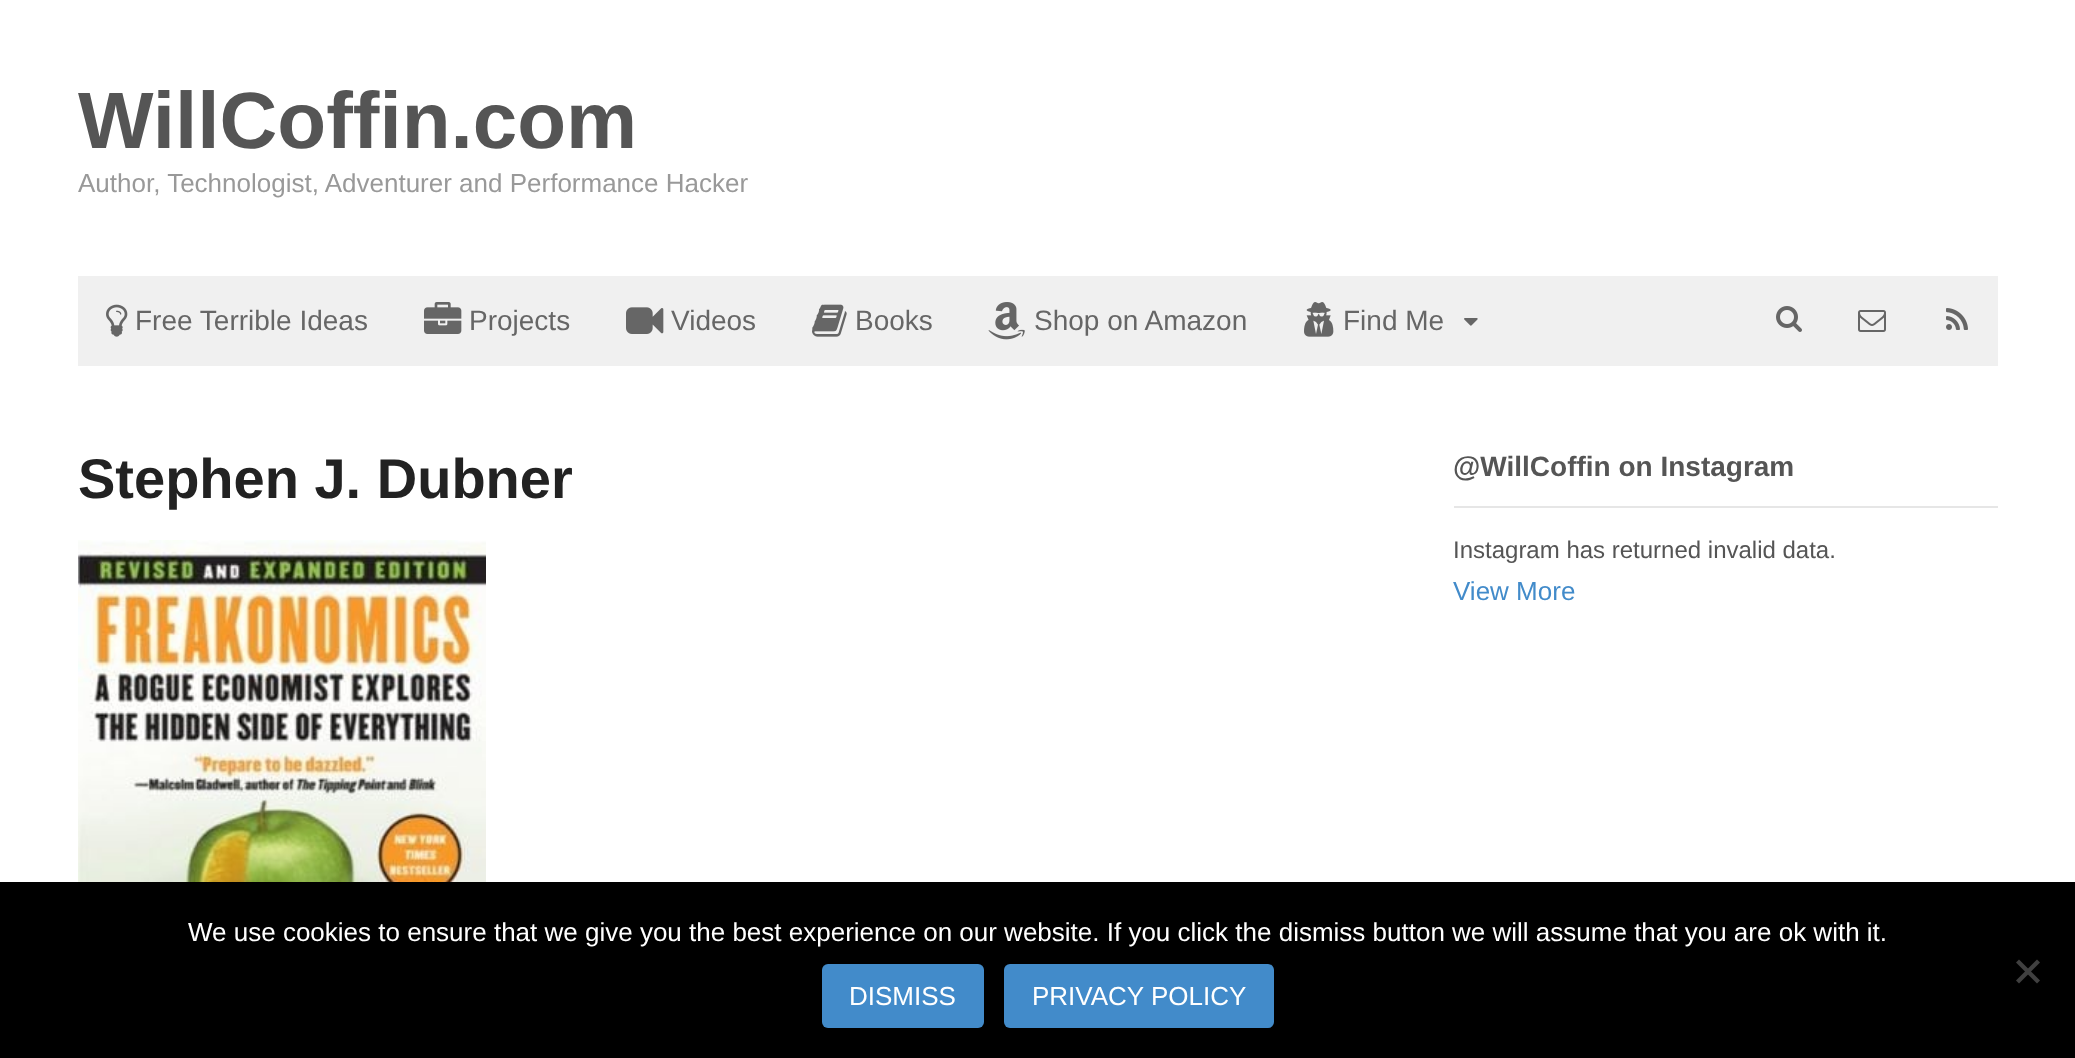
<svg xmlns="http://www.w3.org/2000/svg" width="2075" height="1058">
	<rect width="100%" height="100%" fill="#FFFFFF" />
	<text x="78" y="148" font-family="Liberation Sans" font-size="80" font-weight="700" fill="#555555">WillCoffin.com</text>
	<text x="78" y="192" font-family="Liberation Sans" font-size="26" fill="#999999">Author, Technologist, Adventurer and Performance Hacker</text>
	<rect x="78" y="276" width="1920" height="90" fill="#F0F0F0" />
	<image x="106" y="304" width="22" height="33" href="assets/img1.png" />
	<text x="135" y="330" font-family="Liberation Sans" font-size="28" fill="#666666">Free Terrible Ideas</text>
	<image x="424" y="302" width="38" height="32" href="assets/img2.png" />
	<text x="469" y="330" font-family="Liberation Sans" font-size="28" fill="#666666">Projects</text>
	<image x="626" y="307" width="38" height="27" href="assets/img3.png" />
	<text x="671" y="330" font-family="Liberation Sans" font-size="28" fill="#666666">Videos</text>
	<image x="812" y="304" width="35" height="33" href="assets/img4.png" />
	<text x="855" y="330" font-family="Liberation Sans" font-size="28" fill="#666666">Books</text>
	<image x="988" y="302" width="37" height="38" href="assets/img5.png" />
	<text x="1034" y="330" font-family="Liberation Sans" font-size="28" fill="#666666">Shop on Amazon</text>
	<image x="1304" y="302" width="30" height="35" href="assets/img6.png" />
	<text x="1343" y="330" font-family="Liberation Sans" font-size="28" fill="#666666">Find Me</text>
	<image x="1464" y="318" width="14" height="8" href="assets/img7.png" />
	<image x="1776" y="306" width="26" height="26" href="assets/img8.png" />
	<image x="1858" y="310" width="28" height="22" href="assets/img9.png" />
	<image x="1946" y="308" width="22" height="22" href="assets/img10.png" />
	<text x="78" y="498" font-family="Liberation Sans" font-size="56" font-weight="700" fill="#222222">Stephen J. Dubner</text>
	<image x="78" y="540" width="408" height="342" href="assets/img11.png" />
	<rect x="1454" y="506" width="544" height="2" fill="#E6E6E6" />
	<text x="1453" y="476" font-family="Liberation Sans" font-size="28" font-weight="700" fill="#555555">@WillCoffin on Instagram</text>
	<text x="1453" y="558" font-family="Liberation Sans" font-size="24" fill="#555555">Instagram has returned invalid data.</text>
	<text x="1453" y="600" font-family="Liberation Sans" font-size="26" fill="#428BCA">View More</text>
	<rect x="0" y="882" width="2075" height="176" fill="#000000" />
	<text x="188" y="941" font-family="Liberation Sans" font-size="26" fill="#FFFFFF">We use cookies to ensure that we give you the best experience on our website. If you click the dismiss button we will assume that you are ok with it.</text>
	<path d="M2037 959.5L2040 962.5L2019 983.5L2016 980.5Z" fill="#404040" />
	<path d="M2016 962.5L2019 959.5L2040 980.5L2037 983.5Z" fill="#404040" />
	<rect x="822" y="964" width="162" height="64" rx="6" fill="#428BCA" />
	<text x="849" y="1005" font-family="Liberation Sans" font-size="26" fill="#FFFFFF">DISMISS</text>
	<rect x="1004" y="964" width="270" height="64" rx="6" fill="#428BCA" />
	<text x="1032" y="1005" font-family="Liberation Sans" font-size="26" fill="#FFFFFF">PRIVACY POLICY</text>
</svg>
